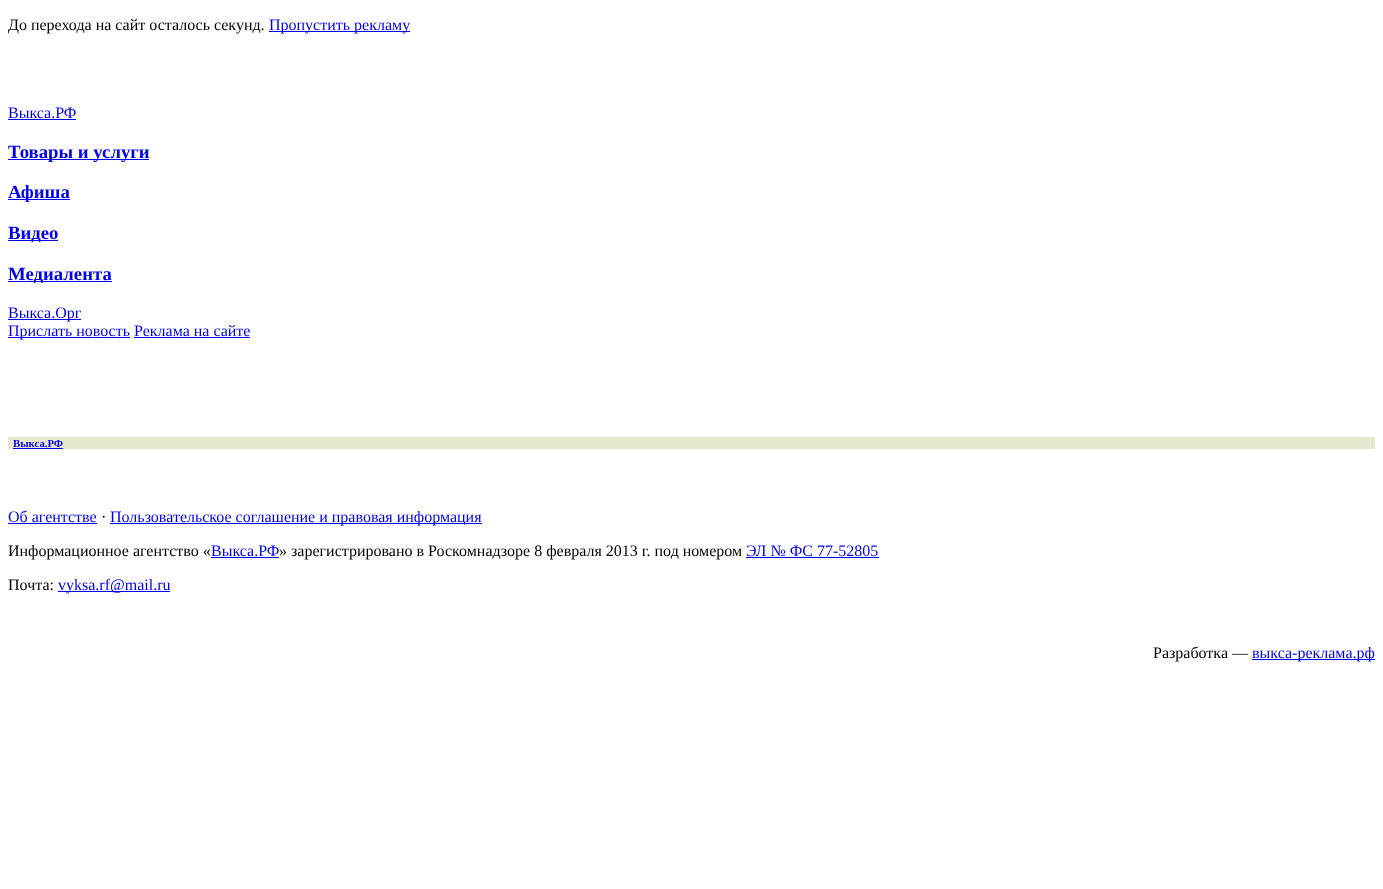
<svg xmlns="http://www.w3.org/2000/svg" width="1383" height="889">
	<rect width="100%" height="100%" fill="#FFFFFF" />
	<text x="8" y="30" font-family="Liberation Serif" font-size="16" fill="#000000">До перехода на сайт осталось секунд.</text>
	<rect x="269" y="31" width="141" height="1" fill="#0000EE" />
	<g font-family="Liberation Serif" font-size="16" fill="#0000EE">
		<text x="269" y="30">Пропустить рекламу</text>
		<text x="8" y="118">Выкса.РФ</text>
	</g>
	<rect x="8" y="119" width="68" height="1" fill="#0000EE" />
	<rect x="8" y="159" width="141" height="1" fill="#0000EE" />
	<text x="8" y="158" font-family="Liberation Serif" font-size="18.75" font-weight="700" fill="#0000EE">Товары и услуги</text>
	<rect x="8" y="199" width="62" height="1" fill="#0000EE" />
	<text x="8" y="198" font-family="Liberation Serif" font-size="18.75" font-weight="700" fill="#0000EE">Афиша</text>
	<rect x="8" y="240" width="50" height="1" fill="#0000EE" />
	<text x="8" y="239" font-family="Liberation Serif" font-size="18.75" font-weight="700" fill="#0000EE">Видео</text>
	<rect x="8" y="281" width="104" height="1" fill="#0000EE" />
	<text x="8" y="280" font-family="Liberation Serif" font-size="18.75" font-weight="700" fill="#0000EE">Медиалента</text>
	<rect x="8" y="319" width="73" height="1" fill="#0000EE" />
	<text x="8" y="318" font-family="Liberation Serif" font-size="16" fill="#0000EE">Выкса.Орг</text>
	<rect x="8" y="337" width="122" height="1" fill="#0000EE" />
	<text x="8" y="336" font-family="Liberation Serif" font-size="16" fill="#0000EE">Прислать новость Реклама на сайте</text>
	<rect x="134" y="337" width="116" height="1" fill="#0000EE" />
	<rect x="8" y="437" width="1367" height="12" fill="#E8E8D0" />
	<text x="13" y="447" font-family="Liberation Serif" font-size="10.75" font-weight="700" fill="#0000EE">Выкса.РФ</text>
	<rect x="13" y="448" width="50" height="1" fill="#0000EE" />
	<text x="8" y="522" font-family="Liberation Serif" font-size="16" fill="#0000EE">Об агентстве</text>
	<rect x="8" y="523" width="89" height="1" fill="#0000EE" />
	<text x="101" y="522" font-family="Liberation Serif" font-size="16" fill="#000000">·</text>
	<rect x="110" y="523" width="372" height="1" fill="#0000EE" />
	<text x="110" y="522" font-family="Liberation Serif" font-size="16" fill="#0000EE">Пользовательское соглашение и правовая информация</text>
	<text x="8" y="556" font-family="Liberation Serif" font-size="16" fill="#000000">Информационное агентство «</text>
	<text x="211" y="556" font-family="Liberation Serif" font-size="16" fill="#0000EE">Выкса.РФ</text>
	<rect x="211" y="557" width="68" height="1" fill="#0000EE" />
	<text x="279" y="556" font-family="Liberation Serif" font-size="16" fill="#000000">» зарегистрировано в Роскомнадзоре 8 февраля 2013 г. под номером</text>
	<text x="746" y="556" font-family="Liberation Serif" font-size="16" fill="#0000EE">ЭЛ № ФС 77-52805</text>
	<rect x="746" y="557" width="133" height="1" fill="#0000EE" />
	<text x="8" y="590" font-family="Liberation Serif" font-size="16" fill="#000000">Почта:</text>
	<rect x="58" y="591" width="112" height="1" fill="#0000EE" />
	<text x="58" y="590" font-family="Liberation Serif" font-size="16" fill="#0000EE">vyksa.rf@mail.ru</text>
	<text x="1153" y="658" font-family="Liberation Serif" font-size="16" fill="#000000">Разработка —</text>
	<rect x="1252" y="659" width="123" height="1" fill="#0000EE" />
	<text x="1252" y="658" font-family="Liberation Serif" font-size="16" fill="#0000EE">выкса-реклама.рф</text>
</svg>
